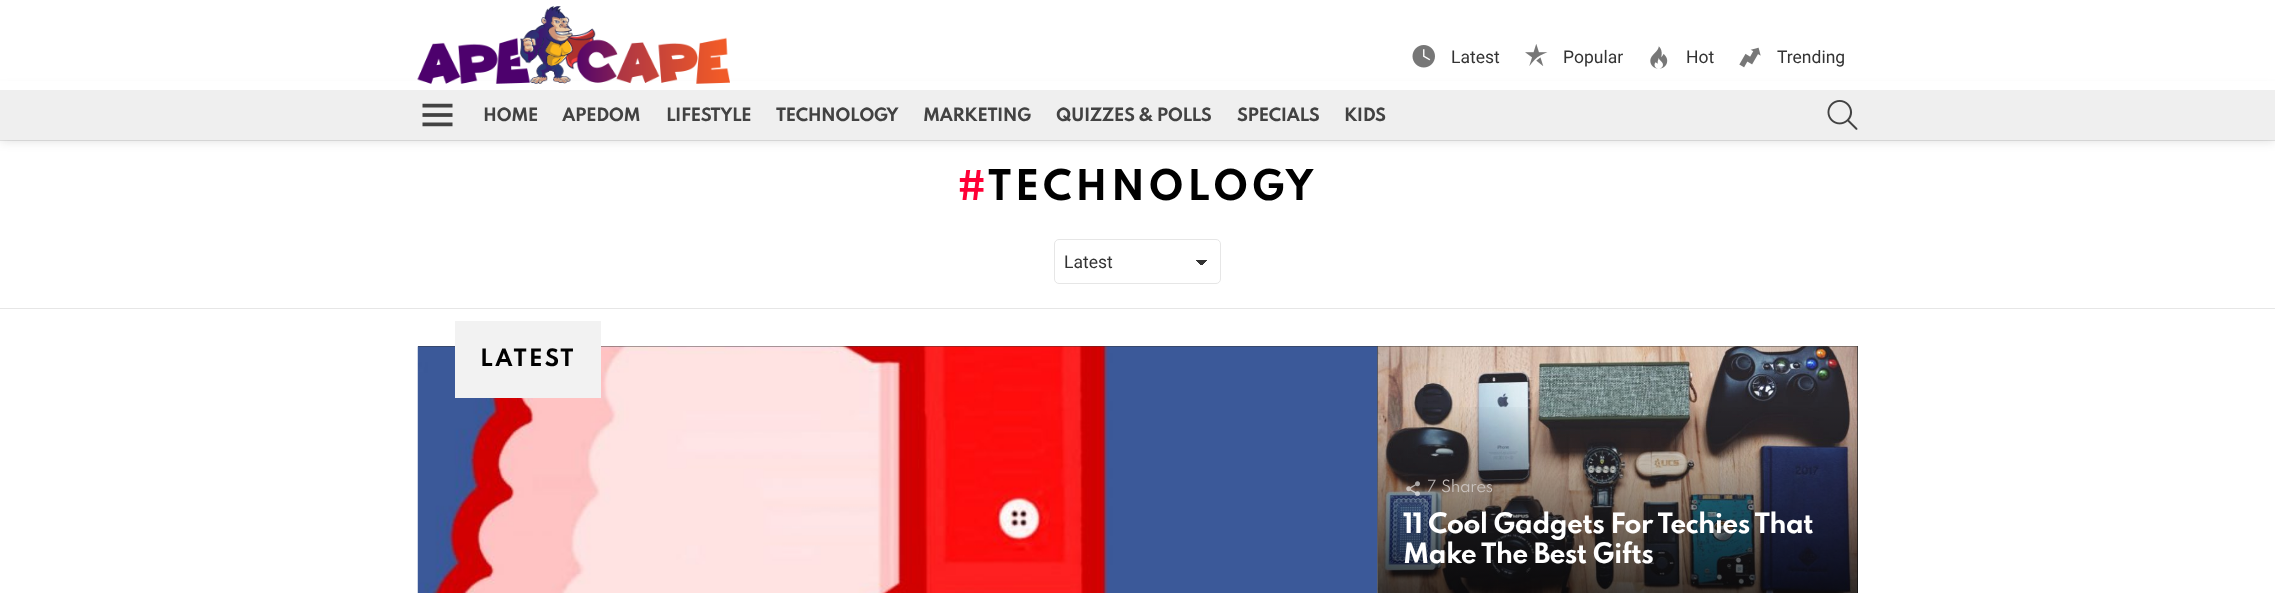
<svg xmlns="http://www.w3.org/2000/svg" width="2275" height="593">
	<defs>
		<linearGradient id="g1" gradientUnits="userSpaceOnUse" x1="1202" y1="260" x2="1207" y2="265"><stop offset="0.5" stop-color="#333333" /><stop offset="0.5" stop-color="#FFFFFF" /></linearGradient>
		<linearGradient id="g2" gradientUnits="userSpaceOnUse" x1="1195" y1="265" x2="1201" y2="260"><stop offset="0.5" stop-color="#FFFFFF" /><stop offset="0.5" stop-color="#333333" /></linearGradient>
		<linearGradient id="g3" gradientUnits="userSpaceOnUse" x1="1618" y1="401" x2="1618" y2="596"><stop offset="0" stop-color="#000000" stop-opacity="0" /><stop offset="1" stop-color="#000000" stop-opacity="0.75" /></linearGradient>
	</defs>
	<rect width="100%" height="100%" fill="#FFFFFF" />
	<rect x="0" y="140" width="2275" height="1" fill="#E6E6E6" />
	<rect x="0" y="90" width="2275" height="50" fill="#000000" fill-opacity="0.15" filter="blur(6px)" />
	<rect x="0" y="81" width="2275" height="9" fill="#FFFFFF" />
	<image x="417" y="6" width="313" height="78" href="assets/img1.png" />
	<image x="1412" y="45" width="23" height="23" href="assets/img2.png" />
	<text x="1451" y="63" font-family="Roboto" font-size="17.5" fill="#333333">Latest</text>
	<image x="1525" y="44" width="23" height="22" href="assets/img3.png" />
	<text x="1563" y="63" font-family="Roboto" font-size="17.5" fill="#333333">Popular</text>
	<image x="1650" y="46" width="18" height="23" href="assets/img4.png" />
	<text x="1686" y="63" font-family="Roboto" font-size="17.5" fill="#333333">Hot</text>
	<image x="1739" y="47" width="22" height="21" href="assets/img5.png" />
	<text x="1777" y="63" font-family="Roboto" font-size="17.5" fill="#333333">Trending</text>
	<rect x="0" y="90" width="2275" height="50" fill="#EFEFEF" />
	<image x="422" y="103" width="31" height="24" href="assets/img6.png" />
	<g font-family="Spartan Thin" font-size="16.25" font-weight="700" letter-spacing="-0.5" fill="#424242">
		<text x="483" y="121">HOME</text>
		<text x="562" y="121">APEDOM</text>
		<text x="666" y="121">LIFESTYLE</text>
		<text x="776" y="121">TECHNOLOGY</text>
		<text x="923" y="121">MARKETING</text>
		<text x="1056" y="121">QUIZZES &amp; POLLS</text>
		<text x="1237" y="121">SPECIALS</text>
		<text x="1344" y="121">KIDS</text>
	</g>
	<image x="1827" y="100" width="31" height="30" href="assets/img7.png" />
	<text x="957" y="200" font-family="Spartan Thin" font-size="37.5" font-weight="700" letter-spacing="3.6" fill="#FF0036">#</text>
	<text x="988" y="200" font-family="Spartan Thin" font-size="37.5" font-weight="700" letter-spacing="3.6" fill="#000000">TECHNOLOGY</text>
	<rect x="1201" y="260" width="7" height="5" fill="url(#g1)" />
	<rect x="1195" y="260" width="6" height="5" fill="url(#g2)" />
	<rect x="1054.5" y="239.5" width="166" height="44" rx="4.5" fill="none" stroke="#E6E6E6" />
	<text x="1064" y="268" font-family="Roboto" font-size="17.5" fill="#333333">Latest</text>
	<rect x="0" y="308" width="2275" height="1" fill="#E6E6E6" />
	<rect x="418" y="346" width="1440" height="247" fill="#333333" />
	<image x="417" y="346" width="961" height="247" href="assets/img8.png" />
	<rect x="455" y="321" width="146" height="77" fill="#F2F2F2" />
	<text x="480" y="366" font-family="Spartan Thin" font-size="21.25" font-weight="700" letter-spacing="2" fill="#000000">LATEST</text>
	<image x="1377" y="346" width="481" height="247" href="assets/img9.png" />
	<rect x="1378" y="407" width="480" height="186" fill="url(#g3)" />
	<image x="1406" y="481" width="14" height="16" href="assets/img10.png" />
	<text x="1427" y="492" font-family="Spartan Thin" font-size="15" letter-spacing="-0.5" fill="#AEAAA9">7</text>
	<text x="1441" y="492" font-family="Spartan Thin" font-size="15" letter-spacing="-0.5" fill="#CBC4C0">Shares</text>
	<g font-family="Spartan Thin" font-size="25" font-weight="700" letter-spacing="-0.75" fill="#FFFFFF">
		<text x="1403" y="533">11 Cool Gadgets For Techies That</text>
		<text x="1403" y="563">Make The Best Gifts</text>
	</g>
</svg>
